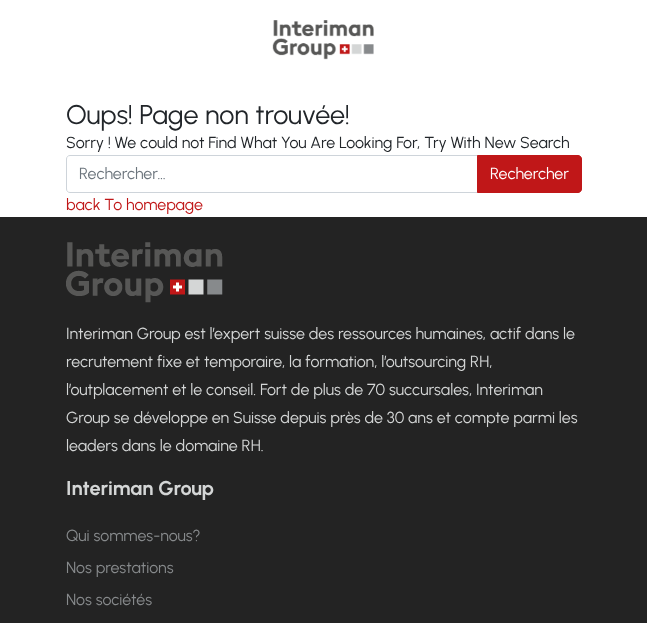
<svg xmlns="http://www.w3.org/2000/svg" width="647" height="623">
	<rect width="100%" height="100%" fill="#FFFFFF" />
	<image x="272" y="20" width="102" height="40" href="assets/img1.png" />
	<text x="66" y="124" font-family="Urbanist" font-size="27" fill="#212529">Oups! Page non trouvée!</text>
	<text x="66" y="148" font-family="Urbanist" font-size="16" fill="#212529">Sorry ! We could not Find What You Are Looking For, Try With New Search</text>
	<path d="M70 155.5H477.5V192.5H70C68 192.5 66.5 191 66.5 189V159C66.5 157 68 155.5 70 155.5Z" fill="none" stroke="#CED4DA" />
	<text x="79" y="179" font-family="Urbanist" font-size="16" fill="#6C757D">Rechercher…</text>
	<path d="M477.5 155.5H578C580 155.5 581.5 157 581.5 159V189C581.5 191 580 192.5 578 192.5H477.5Z" fill="#C01718" stroke="#C01718" />
	<text x="490" y="179" font-family="Urbanist" font-size="16" fill="#FFFFFF">Rechercher</text>
	<text x="66" y="210" font-family="Urbanist" font-size="16" fill="#C01718">back To homepage</text>
	<rect x="0" y="217" width="647" height="406" fill="#232323" />
	<image x="66" y="242" width="157" height="61" href="assets/img2.png" />
	<g font-family="Urbanist" font-size="16" fill="#D4D6D6">
		<text x="66" y="339">Interiman Group est l’expert suisse des ressources humaines, actif dans le</text>
		<text x="66" y="367">recrutement fixe et temporaire, la formation, l’outsourcing RH,</text>
		<text x="66" y="395">l’outplacement et le conseil. Fort de plus de 70 succursales, Interiman</text>
		<text x="66" y="423">Group se développe en Suisse depuis près de 30 ans et compte parmi les</text>
		<text x="66" y="451">leaders dans le domaine RH.</text>
	</g>
	<text x="66" y="495" font-family="Urbanist" font-size="20" font-weight="700" fill="#D4D6D6">Interiman Group</text>
	<g font-family="Urbanist" font-size="16" fill="#878A8C">
		<text x="66" y="541">Qui sommes-nous?</text>
		<text x="66" y="573">Nos prestations</text>
		<text x="66" y="605">Nos sociétés</text>
	</g>
</svg>
